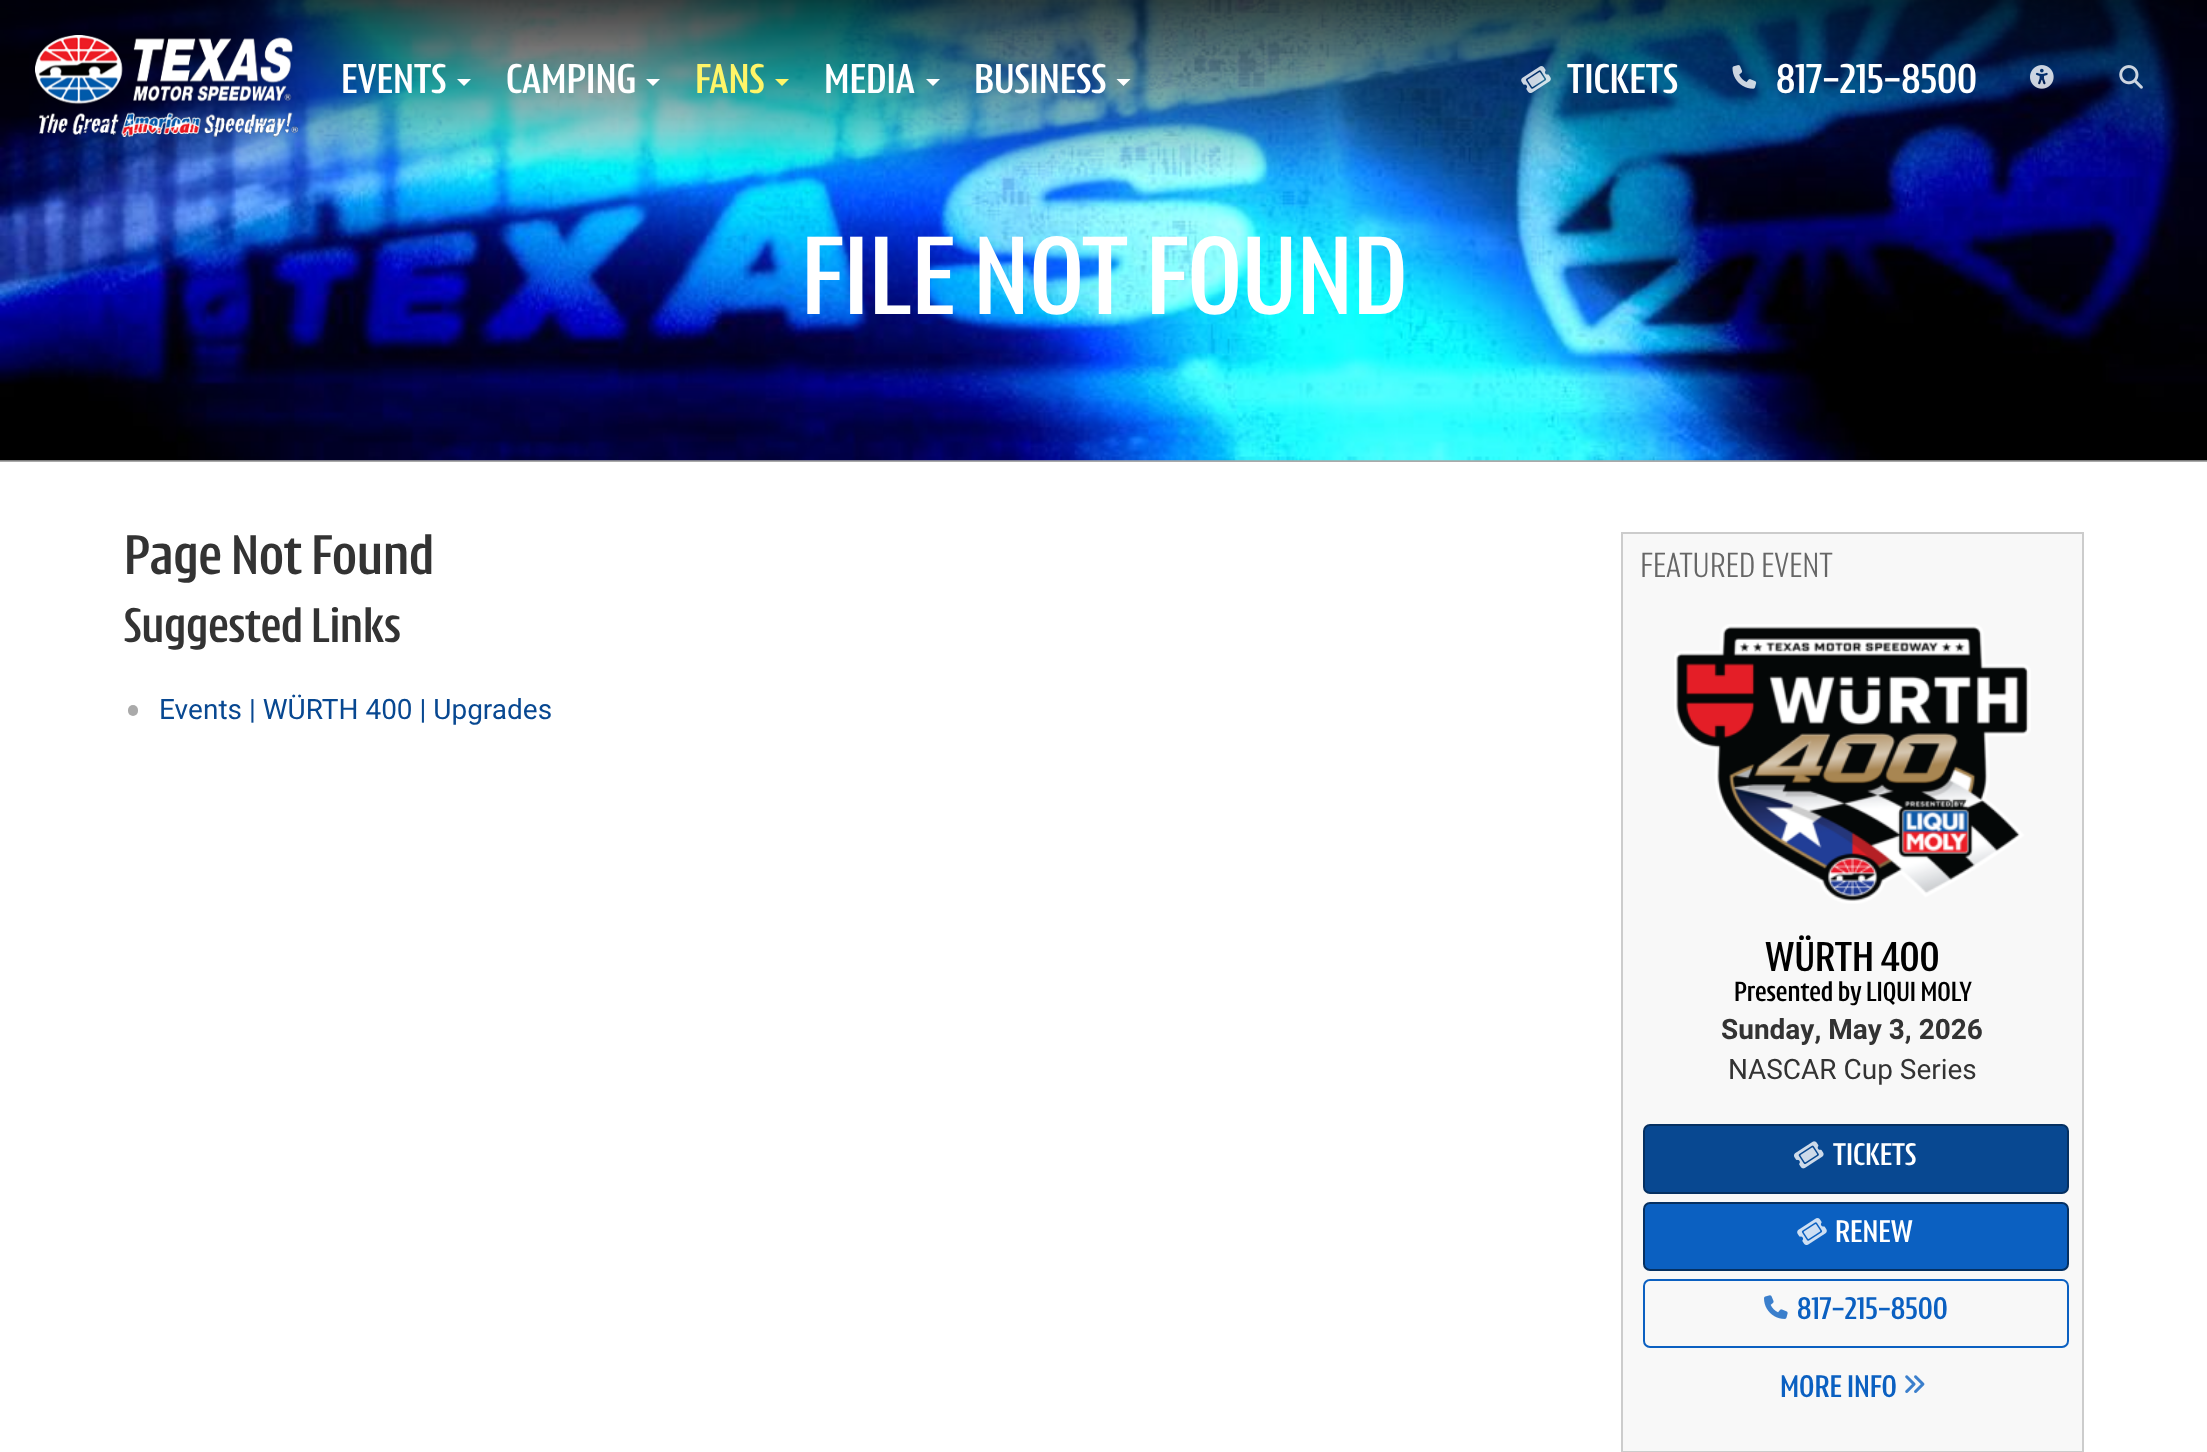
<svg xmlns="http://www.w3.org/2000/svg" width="2207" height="1452">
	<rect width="100%" height="100%" fill="#FFFFFF" />
	<rect x="0" y="460" width="2207" height="2" fill="#AAAAAA" />
	<image x="0" y="0" width="2207" height="461" href="assets/img6.png" />
	<text x="341" y="93" font-family="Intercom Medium" font-size="42" font-weight="500" fill="#FFFFFF">EVENTS</text>
	<path d="M457 79H471L464 86Z" fill="#FFFFFF" />
	<text x="506" y="93" font-family="Intercom Medium" font-size="42" font-weight="500" fill="#FFFFFF">CAMPING</text>
	<path d="M646 79H660L653 86Z" fill="#FFFFFF" />
	<text x="695" y="93" font-family="Intercom Medium" font-size="42" font-weight="500" fill="#FFF568">FANS</text>
	<path d="M775 79H789L782 86Z" fill="#FFF568" />
	<text x="824" y="93" font-family="Intercom Medium" font-size="42" font-weight="500" fill="#FFFFFF">MEDIA</text>
	<path d="M926 79H940L933 86Z" fill="#FFFFFF" />
	<text x="974" y="93" font-family="Intercom Medium" font-size="42" font-weight="500" fill="#FFFFFF">BUSINESS</text>
	<path d="M1116.5 79H1130.5L1123.5 86Z" fill="#FFFFFF" />
	<image x="35" y="35" width="263" height="102" href="assets/img1.png" />
	<image x="1521" y="66" width="30" height="27" href="assets/img2.png" />
	<text x="1567" y="93" font-family="Intercom Medium" font-size="42" font-weight="500" fill="#FFFFFF">TICKETS</text>
	<image x="1732" y="65" width="25" height="24" href="assets/img3.png" />
	<text x="1776" y="93" font-family="Intercom Medium" font-size="42" font-weight="500" fill="#FFFFFF">817-215-8500</text>
	<image x="2030" y="65" width="24" height="24" href="assets/img4.png" />
	<image x="2119" y="65" width="24" height="24" href="assets/img5.png" />
	<text x="801" y="314" font-family="Intercom Medium" font-size="112" font-weight="500" fill="#FFFFFF">FILE NOT FOUND</text>
	<text x="124" y="574" font-family="Intercom Medium" font-size="56" font-weight="500" fill="#333333">Page Not Found</text>
	<text x="124" y="642" font-family="Intercom Medium" font-size="49" font-weight="500" fill="#333333">Suggested Links</text>
	<rect x="128" y="705" width="10" height="11" rx="5" fill="#AAAAAA" />
	<text x="159" y="719" font-family="Roboto" font-size="28" fill="#084891">Events | WÜRTH 400 | Upgrades</text>
	<rect x="1622" y="533" width="461" height="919" fill="#F8F8F8" stroke="#CCCCCC" stroke-width="2" />
	<text x="1640" y="577" font-family="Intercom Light" font-size="35" font-weight="300" fill="#666666">FEATURED EVENT</text>
	<image x="1674" y="624" width="357" height="280" href="assets/img7.png" />
	<text x="1765" y="971" font-family="Intercom Medium" font-size="42" font-weight="500" fill="#000000">WÜRTH 400</text>
	<text x="1734" y="1001" font-family="Intercom Medium" font-size="27.75" font-weight="500" fill="#000000">Presented by LIQUI MOLY</text>
	<text x="1721" y="1039" font-family="Roboto" font-size="28" font-weight="700" fill="#333333">Sunday, May 3, 2026</text>
	<text x="1728" y="1079" font-family="Roboto" font-size="28" fill="#333333">NASCAR Cup Series</text>
	<rect x="1644" y="1125" width="424" height="68" rx="6" fill="#084891" stroke="#053061" stroke-width="2" />
	<image x="1794" y="1141" width="30" height="28" href="assets/img8.png" />
	<text x="1833" y="1165" font-family="Intercom Medium" font-size="31.5" font-weight="500" fill="#FFFFFF">TICKETS</text>
	<rect x="1644" y="1203" width="424" height="67" rx="6" fill="#0B60C1" stroke="#053061" stroke-width="2" />
	<image x="1797" y="1218" width="30" height="27" href="assets/img9.png" />
	<text x="1835" y="1242" font-family="Intercom Medium" font-size="31.5" font-weight="500" fill="#FFFFFF">RENEW</text>
	<rect x="1644" y="1280" width="424" height="67" rx="6" fill="none" stroke="#0B60C1" stroke-width="2" />
	<image x="1764" y="1295" width="24" height="24" href="assets/img10.png" />
	<g font-family="Intercom Medium" font-size="31.5" font-weight="500" fill="#0B60C1">
		<text x="1797" y="1319">817-215-8500</text>
		<text x="1780" y="1397">MORE INFO</text>
	</g>
	<image x="1905" y="1375" width="20" height="18" href="assets/img11.png" />
</svg>
